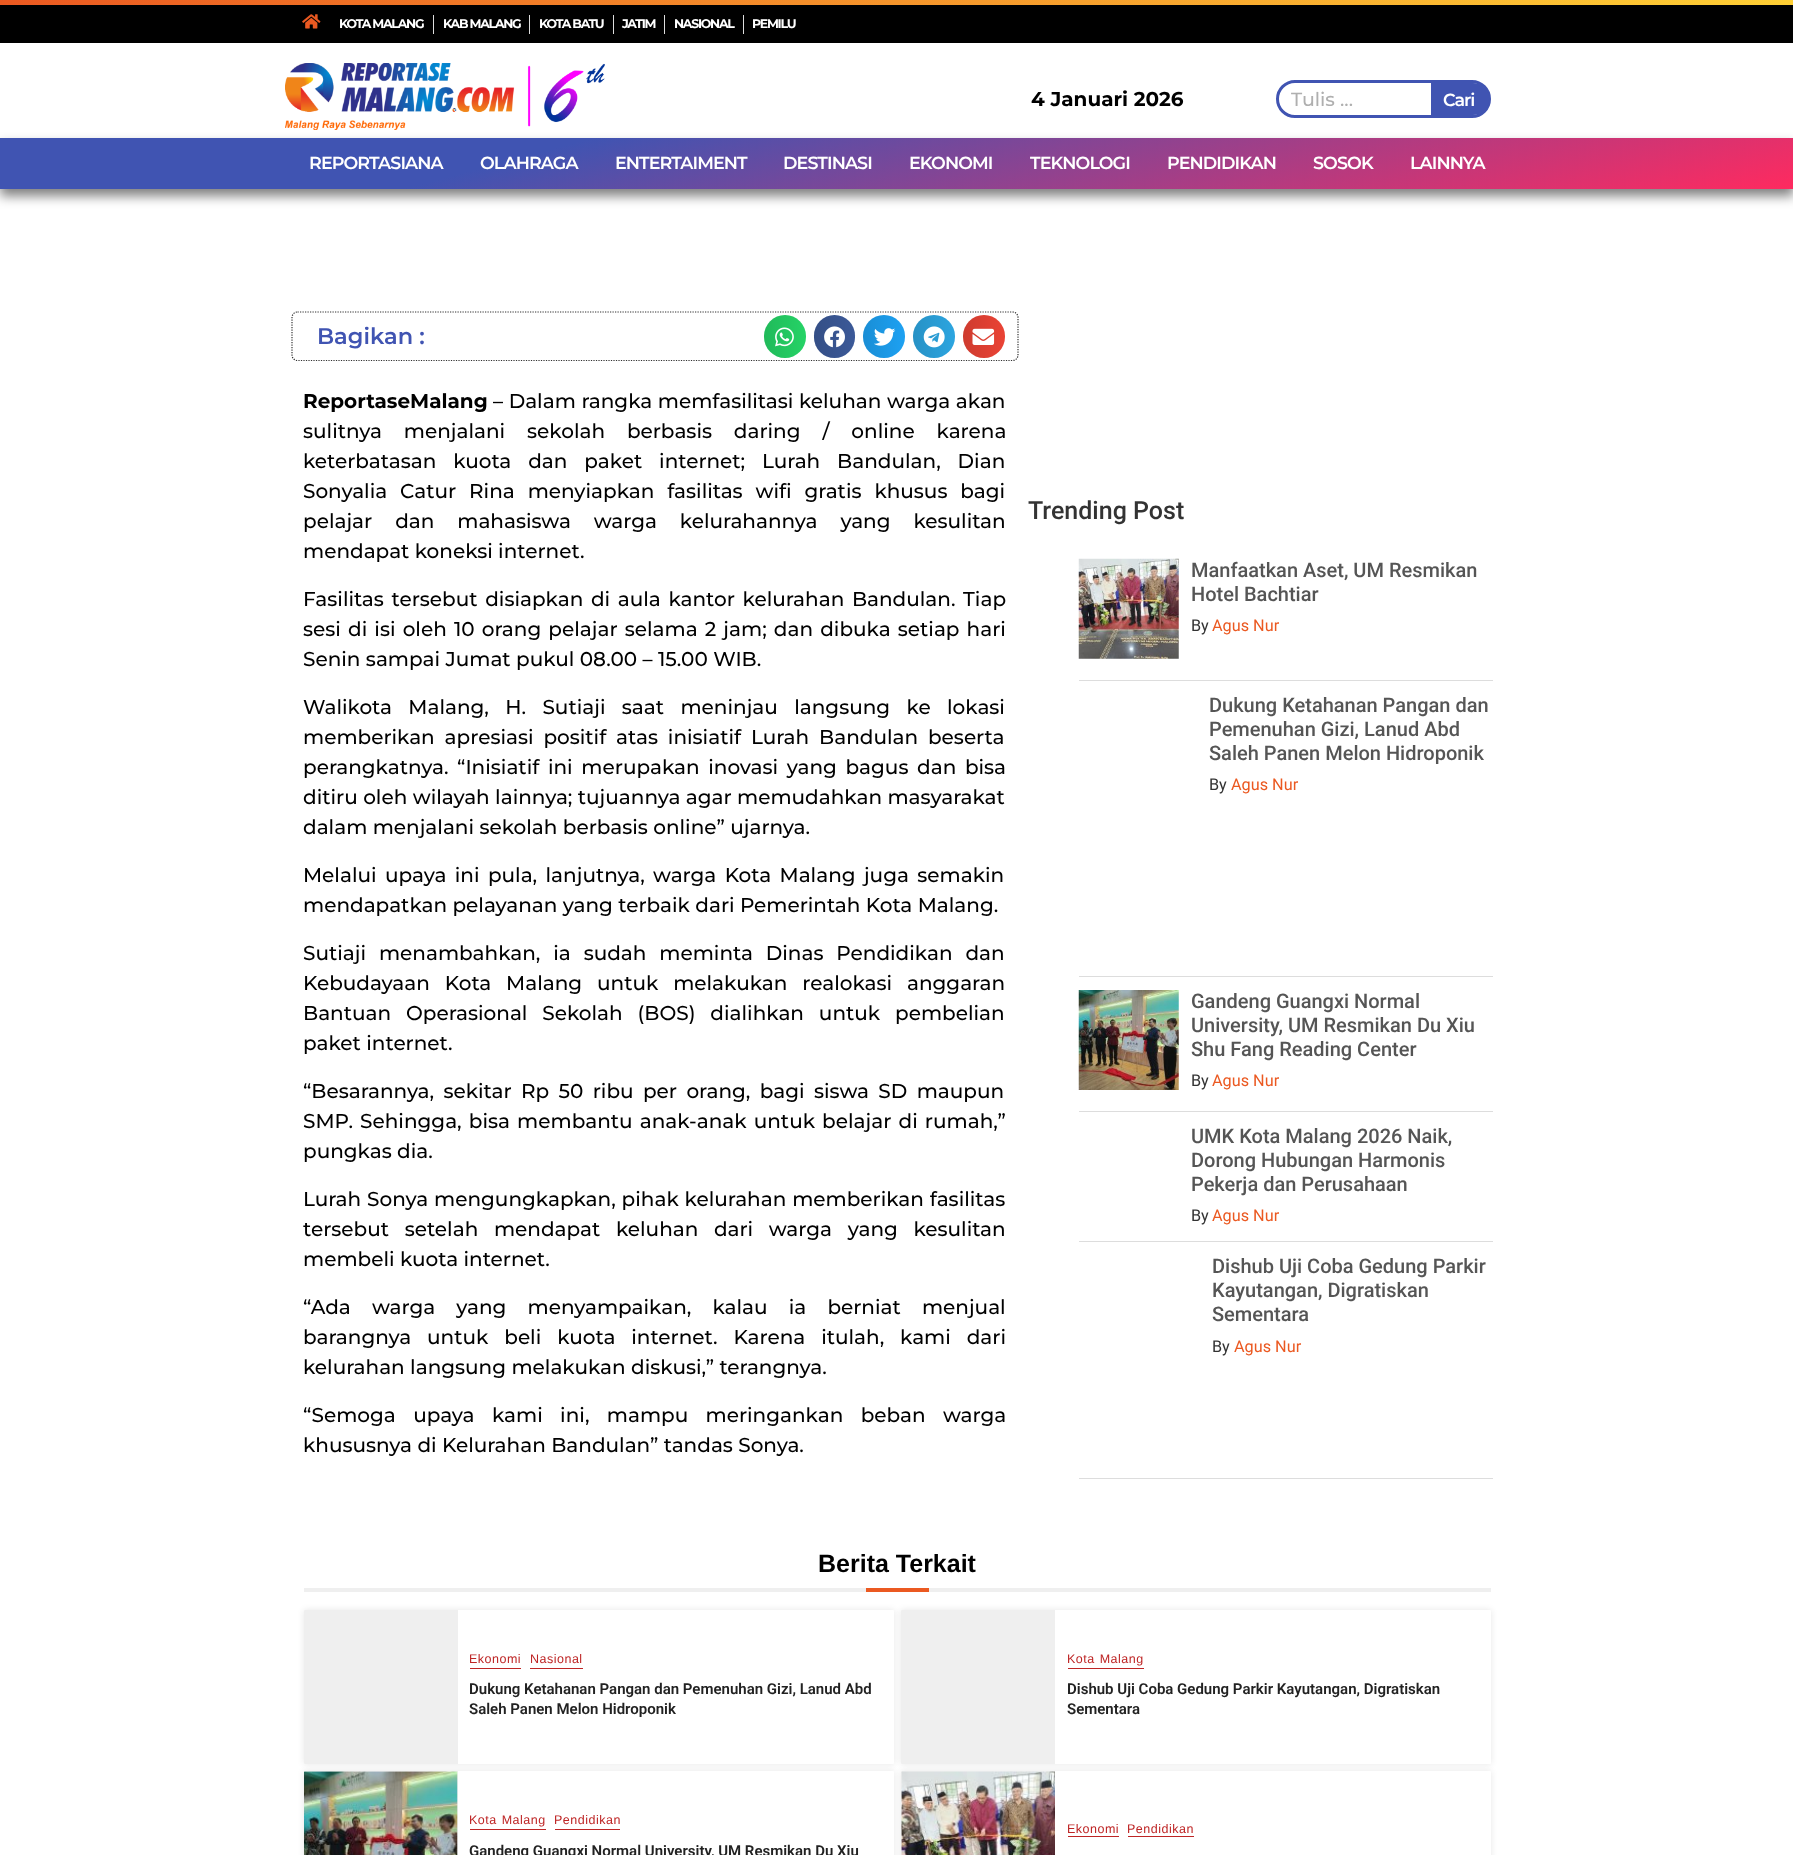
<svg xmlns="http://www.w3.org/2000/svg" width="1793" height="1855">
	<defs>
		<linearGradient id="g1" gradientUnits="userSpaceOnUse" x1="540" y1="-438" x2="1253" y2="443"><stop offset="0" stop-color="#EB5921" /><stop offset="1" stop-color="#FFD035" /></linearGradient>
		<linearGradient id="g2" gradientUnits="userSpaceOnUse" x1="830" y1="-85" x2="963" y2="411"><stop offset="0.3" stop-color="#4054B2" /><stop offset="1" stop-color="#FF2A5F" /></linearGradient>
		<linearGradient id="g3" gradientUnits="userSpaceOnUse" x1="764" y1="336" x2="806" y2="336"><stop offset="0" stop-color="#000000" stop-opacity="0.12" /><stop offset="1" stop-color="#000000" stop-opacity="0" /></linearGradient>
		<linearGradient id="g4" gradientUnits="userSpaceOnUse" x1="814" y1="336" x2="855" y2="336"><stop offset="0" stop-color="#000000" stop-opacity="0.12" /><stop offset="1" stop-color="#000000" stop-opacity="0" /></linearGradient>
		<linearGradient id="g5" gradientUnits="userSpaceOnUse" x1="863" y1="336" x2="905" y2="336"><stop offset="0" stop-color="#000000" stop-opacity="0.12" /><stop offset="1" stop-color="#000000" stop-opacity="0" /></linearGradient>
		<linearGradient id="g6" gradientUnits="userSpaceOnUse" x1="913" y1="336" x2="955" y2="336"><stop offset="0" stop-color="#000000" stop-opacity="0.12" /><stop offset="1" stop-color="#000000" stop-opacity="0" /></linearGradient>
		<linearGradient id="g7" gradientUnits="userSpaceOnUse" x1="963" y1="336" x2="1005" y2="336"><stop offset="0" stop-color="#000000" stop-opacity="0.12" /><stop offset="1" stop-color="#000000" stop-opacity="0" /></linearGradient>
	</defs>
	<rect width="100%" height="100%" fill="#FFFFFF" />
	<rect x="0" y="0" width="1793" height="5" fill="url(#g1)" />
	<rect x="0" y="5" width="1793" height="38" fill="#000000" />
	<image x="302" y="14" width="19" height="15" href="assets/img1.png" />
	<text x="339" y="28" font-family="Montserrat" font-size="12.5" font-weight="700" letter-spacing="-1.25" fill="#FFFFFF">KOTA MALANG</text>
	<rect x="433" y="15" width="1" height="19" fill="#DDDDDD" />
	<text x="443" y="28" font-family="Montserrat" font-size="12.5" font-weight="700" letter-spacing="-1.25" fill="#FFFFFF">KAB MALANG</text>
	<rect x="529" y="15" width="1" height="19" fill="#DDDDDD" />
	<text x="539" y="28" font-family="Montserrat" font-size="12.5" font-weight="700" letter-spacing="-1.25" fill="#FFFFFF">KOTA BATU</text>
	<rect x="613" y="15" width="1" height="19" fill="#DDDDDD" />
	<text x="622" y="28" font-family="Montserrat" font-size="12.5" font-weight="700" letter-spacing="-1.25" fill="#FFFFFF">JATIM</text>
	<rect x="664" y="15" width="1" height="19" fill="#DDDDDD" />
	<text x="674" y="28" font-family="Montserrat" font-size="12.5" font-weight="700" letter-spacing="-1.25" fill="#FFFFFF">NASIONAL</text>
	<rect x="743" y="15" width="1" height="19" fill="#DDDDDD" />
	<text x="752" y="28" font-family="Montserrat" font-size="12.5" font-weight="700" letter-spacing="-1.25" fill="#FFFFFF">PEMILU</text>
	<image x="285" y="63" width="320" height="67" href="assets/img2.png" />
	<text x="1031" y="106" font-family="Montserrat" font-size="20" font-weight="700" fill="#000000">4 Januari 2026</text>
	<rect x="1277.5" y="81.5" width="212" height="35" rx="17.5" fill="none" stroke="#4054B2" stroke-width="3" />
	<text x="1291" y="106" font-family="Montserrat" font-size="19" font-weight="500" fill="#AFAFAF">Tulis ...</text>
	<path d="M1431 83H1473C1482 83 1489 90 1489 99C1489 108 1482 115 1473 115H1431Z" fill="#4054B2" />
	<text x="1443" y="106" font-family="Montserrat" font-size="17.5" font-weight="600" letter-spacing="-1" fill="#FFFFFF">Cari</text>
	<rect x="0" y="145" width="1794" height="51" fill="#000000" fill-opacity="0.5" filter="blur(6px)" />
	<rect x="0" y="138" width="1793" height="51" fill="url(#g2)" />
	<g font-family="Montserrat" font-size="17.5" font-weight="600" letter-spacing="-0.9" fill="#FFFFFF">
		<text x="309" y="169">REPORTASIANA</text>
		<text x="480" y="169">OLAHRAGA</text>
		<text x="615" y="169">ENTERTAIMENT</text>
		<text x="783" y="169">DESTINASI</text>
		<text x="909" y="169">EKONOMI</text>
		<text x="1030" y="169">TEKNOLOGI</text>
		<text x="1167" y="169">PENDIDIKAN</text>
		<text x="1313" y="169">SOSOK</text>
		<text x="1410" y="169">LAINNYA</text>
	</g>
	<path d="M297.5 312H1012.5C1015.5 312 1018 314.5 1018 317.5V355C1018 358 1015.5 360.5 1012.5 360.5H297.5C294.5 360.5 292 358 292 355V317.5C292 314.5 294.5 312 297.5 312Z" fill="none" stroke="#333333" stroke-width="1.2" stroke-dasharray="1.25 1.25" />
	<text x="317" y="344" font-family="Montserrat" font-size="22.5" font-weight="600" fill="#4054B2">Bagikan :</text>
	<rect x="764" y="315" width="42" height="43" rx="21" fill="#25D366" />
	<rect x="764" y="315" width="42" height="43" rx="21" fill="url(#g3)" />
	<image x="775" y="327" width="19" height="20" href="assets/img3.png" />
	<rect x="814" y="315" width="41" height="43" rx="20.5" fill="#3B5998" />
	<rect x="814" y="315" width="41" height="43" rx="20.5" fill="url(#g4)" />
	<image x="824" y="326" width="21" height="22" href="assets/img4.png" />
	<rect x="863" y="315" width="42" height="43" rx="21" fill="#1DA1F2" />
	<rect x="863" y="315" width="42" height="43" rx="21" fill="url(#g5)" />
	<image x="874" y="328" width="22" height="18" href="assets/img5.png" />
	<rect x="913" y="315" width="42" height="43" rx="21" fill="#2CA5E0" />
	<rect x="913" y="315" width="42" height="43" rx="21" fill="url(#g6)" />
	<image x="923" y="326" width="22" height="22" href="assets/img6.png" />
	<rect x="963" y="315" width="42" height="43" rx="21" fill="#EA4335" />
	<rect x="963" y="315" width="42" height="43" rx="21" fill="url(#g7)" />
	<image x="972" y="328" width="23" height="17" href="assets/img7.png" />
	<text x="303" y="408" font-family="Montserrat" font-size="20" font-weight="700" fill="#000000">ReportaseMalang</text>
	<g font-family="Montserrat" font-size="20" font-weight="500" fill="#000000">
		<text x="493" y="408" word-spacing="0.25">– Dalam rangka memfasilitasi keluhan warga akan</text>
		<text x="303" y="438" word-spacing="16.5">sulitnya menjalani sekolah berbasis daring / online karena</text>
		<text x="303" y="468" word-spacing="11.5">keterbatasan kuota dan paket internet; Lurah Bandulan, Dian</text>
		<text x="303" y="498" word-spacing="7.5">Sonyalia Catur Rina menyiapkan fasilitas wifi gratis khusus bagi</text>
		<text x="303" y="528" word-spacing="17.5">pelajar dan mahasiswa warga kelurahannya yang kesulitan</text>
		<text x="303" y="558">mendapat koneksi internet.</text>
		<text x="303" y="606" word-spacing="2.25">Fasilitas tersebut disiapkan di aula kantor kelurahan Bandulan. Tiap</text>
		<text x="303" y="636" word-spacing="1.75">sesi di isi oleh 10 orang pelajar selama 2 jam; dan dibuka setiap hari</text>
		<text x="303" y="666">Senin sampai Jumat pukul 08.00 – 15.00 WIB.</text>
		<text x="303" y="714" word-spacing="11">Walikota Malang, H. Sutiaji saat meninjau langsung ke lokasi</text>
		<text x="303" y="744" word-spacing="4.5">memberikan apresiasi positif atas inisiatif Lurah Bandulan beserta</text>
		<text x="303" y="774" word-spacing="3.25">perangkatnya. “Inisiatif ini merupakan inovasi yang bagus dan bisa</text>
		<text x="303" y="804">ditiru oleh wilayah lainnya; tujuannya agar memudahkan masyarakat</text>
		<text x="303" y="834">dalam menjalani sekolah berbasis online” ujarnya.</text>
		<text x="303" y="882" word-spacing="3">Melalui upaya ini pula, lanjutnya, warga Kota Malang juga semakin</text>
		<text x="303" y="912">mendapatkan pelayanan yang terbaik dari Pemerintah Kota Malang.</text>
		<text x="303" y="960" word-spacing="7.5">Sutiaji menambahkan, ia sudah meminta Dinas Pendidikan dan</text>
		<text x="303" y="990" word-spacing="9.5">Kebudayaan Kota Malang untuk melakukan realokasi anggaran</text>
		<text x="303" y="1020" word-spacing="9.5">Bantuan Operasional Sekolah (BOS) dialihkan untuk pembelian</text>
		<text x="303" y="1050">paket internet.</text>
		<text x="303" y="1098" word-spacing="4">“Besarannya, sekitar Rp 50 ribu per orang, bagi siswa SD maupun</text>
		<text x="303" y="1128" word-spacing="1.75">SMP. Sehingga, bisa membantu anak-anak untuk belajar di rumah,”</text>
		<text x="303" y="1158">pungkas dia.</text>
		<text x="303" y="1206" word-spacing="0.5">Lurah Sonya mengungkapkan, pihak kelurahan memberikan fasilitas</text>
		<text x="303" y="1236" word-spacing="10.25">tersebut setelah mendapat keluhan dari warga yang kesulitan</text>
		<text x="303" y="1266">membeli kuota internet.</text>
		<text x="303" y="1314" word-spacing="15.75">“Ada warga yang menyampaikan, kalau ia berniat menjual</text>
		<text x="303" y="1344" word-spacing="10.5">barangnya untuk beli kuota internet. Karena itulah, kami dari</text>
		<text x="303" y="1374">kelurahan langsung melakukan diskusi,” terangnya.</text>
		<text x="303" y="1422" word-spacing="12">“Semoga upaya kami ini, mampu meringankan beban warga</text>
		<text x="303" y="1452">khususnya di Kelurahan Bandulan” tandas Sonya.</text>
	</g>
	<text x="1028" y="519" font-family="Roboto" font-size="25" font-weight="500" fill="#333333">Trending Post</text>
	<rect x="1079" y="680" width="414" height="1" fill="#DDDDDD" />
	<image x="1078" y="558" width="101" height="101" href="assets/img8.png" />
	<g font-family="Roboto" font-size="20" font-weight="500" fill="#555555">
		<text x="1191" y="577">Manfaatkan Aset, UM Resmikan</text>
		<text x="1191" y="601">Hotel Bachtiar</text>
	</g>
	<text x="1191" y="631" font-family="Roboto" font-size="16.25" fill="#333333">By</text>
	<text x="1212" y="631" font-family="Roboto" font-size="16.25" fill="#EB5921">Agus Nur</text>
	<rect x="1079" y="976" width="414" height="1" fill="#DDDDDD" />
	<g font-family="Roboto" font-size="20" font-weight="500" fill="#555555">
		<text x="1209" y="712">Dukung Ketahanan Pangan dan</text>
		<text x="1209" y="736">Pemenuhan Gizi, Lanud Abd</text>
		<text x="1209" y="760">Saleh Panen Melon Hidroponik</text>
	</g>
	<text x="1209" y="790" font-family="Roboto" font-size="16.25" fill="#333333">By</text>
	<text x="1231" y="790" font-family="Roboto" font-size="16.25" fill="#EB5921">Agus Nur</text>
	<rect x="1079" y="1111" width="414" height="1" fill="#DDDDDD" />
	<image x="1078" y="990" width="101" height="100" href="assets/img9.png" />
	<g font-family="Roboto" font-size="20" font-weight="500" fill="#555555">
		<text x="1191" y="1008">Gandeng Guangxi Normal</text>
		<text x="1191" y="1032">University, UM Resmikan Du Xiu</text>
		<text x="1191" y="1056">Shu Fang Reading Center</text>
	</g>
	<text x="1191" y="1086" font-family="Roboto" font-size="16.25" fill="#333333">By</text>
	<text x="1212" y="1086" font-family="Roboto" font-size="16.25" fill="#EB5921">Agus Nur</text>
	<rect x="1079" y="1241" width="414" height="1" fill="#DDDDDD" />
	<g font-family="Roboto" font-size="20" font-weight="500" fill="#555555">
		<text x="1191" y="1143">UMK Kota Malang 2026 Naik,</text>
		<text x="1191" y="1167">Dorong Hubungan Harmonis</text>
		<text x="1191" y="1191">Pekerja dan Perusahaan</text>
	</g>
	<text x="1191" y="1221" font-family="Roboto" font-size="16.25" fill="#333333">By</text>
	<text x="1212" y="1221" font-family="Roboto" font-size="16.25" fill="#EB5921">Agus Nur</text>
	<rect x="1079" y="1478" width="414" height="1" fill="#DDDDDD" />
	<g font-family="Roboto" font-size="20" font-weight="500" fill="#555555">
		<text x="1212" y="1273">Dishub Uji Coba Gedung Parkir</text>
		<text x="1212" y="1297">Kayutangan, Digratiskan</text>
		<text x="1212" y="1321">Sementara</text>
	</g>
	<text x="1212" y="1352" font-family="Roboto" font-size="16.25" fill="#333333">By</text>
	<text x="1234" y="1352" font-family="Roboto" font-size="16.25" fill="#EB5921">Agus Nur</text>
	<text x="818" y="1572" font-family="Liberation Sans" font-size="25" font-weight="700" fill="#000000">Berita Terkait</text>
	<rect x="304" y="1588" width="1187" height="4" fill="#EFEFEF" />
	<rect x="866" y="1588" width="63" height="4" fill="#EB5921" />
	<rect x="304" y="1610" width="590" height="154" rx="1" fill="#000000" fill-opacity="0.1" filter="blur(3px)" />
	<rect x="304" y="1610" width="590" height="154" rx="1" fill="#FFFFFF" />
	<rect x="901" y="1610" width="590" height="154" rx="1" fill="#000000" fill-opacity="0.1" filter="blur(3px)" />
	<rect x="901" y="1610" width="590" height="154" rx="1" fill="#FFFFFF" />
	<rect x="304" y="1771" width="590" height="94" rx="1" fill="#000000" fill-opacity="0.1" filter="blur(3px)" />
	<path d="M305 1610H458V1764H305C304.5 1764 304 1763.5 304 1763V1611C304 1610.5 304.5 1610 305 1610Z" fill="#EFEFEF" />
	<rect x="470" y="1668" width="51" height="1" fill="#BE2525" />
	<text x="469" y="1663" font-family="Liberation Sans" font-size="12.5" letter-spacing="0.5" fill="#BE2525">Ekonomi</text>
	<rect x="530" y="1668" width="53" height="1" fill="#BE2525" />
	<text x="530" y="1663" font-family="Liberation Sans" font-size="12.5" letter-spacing="0.5" fill="#BE2525">Nasional</text>
	<g font-family="Roboto" font-size="15" font-weight="600" fill="#222222">
		<text x="469" y="1694">Dukung Ketahanan Pangan dan Pemenuhan Gizi, Lanud Abd</text>
		<text x="469" y="1714">Saleh Panen Melon Hidroponik</text>
	</g>
	<rect x="304" y="1771" width="590" height="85" rx="1" fill="#FFFFFF" />
	<rect x="901" y="1771" width="590" height="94" rx="1" fill="#000000" fill-opacity="0.1" filter="blur(3px)" />
	<path d="M902 1610H1055V1764H902C901.5 1764 901 1763.5 901 1763V1611C901 1610.5 901.5 1610 902 1610Z" fill="#EFEFEF" />
	<rect x="1068" y="1668" width="76" height="1" fill="#BE2525" />
	<text x="1067" y="1663" word-spacing="1" font-family="Liberation Sans" font-size="12.5" letter-spacing="0.5" fill="#BE2525">Kota Malang</text>
	<g font-family="Roboto" font-size="15" font-weight="600" fill="#222222">
		<text x="1067" y="1694">Dishub Uji Coba Gedung Parkir Kayutangan, Digratiskan</text>
		<text x="1067" y="1714">Sementara</text>
	</g>
	<path d="M305 1771H458V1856H305C304.5 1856 304 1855.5 304 1855V1772C304 1771.5 304.5 1771 305 1771Z" fill="#EFEFEF" />
	<image x="304" y="1771" width="154" height="84" href="assets/img10.png" />
	<rect x="470" y="1829" width="76" height="1" fill="#BE2525" />
	<text x="469" y="1824" word-spacing="1" font-family="Liberation Sans" font-size="12.5" letter-spacing="0.5" fill="#BE2525">Kota Malang</text>
	<rect x="555" y="1829" width="65" height="1" fill="#BE2525" />
	<text x="554" y="1824" font-family="Liberation Sans" font-size="12.5" letter-spacing="0.5" fill="#BE2525">Pendidikan</text>
	<text x="469" y="1856" font-family="Roboto" font-size="15" font-weight="600" fill="#222222">Gandeng Guangxi Normal University, UM Resmikan Du Xiu</text>
	<rect x="901" y="1771" width="590" height="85" rx="1" fill="#FFFFFF" />
	<path d="M902 1771H1055V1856H902C901.5 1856 901 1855.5 901 1855V1772C901 1771.5 901.5 1771 902 1771Z" fill="#EFEFEF" />
	<image x="901" y="1771" width="154" height="84" href="assets/img11.png" />
	<rect x="1068" y="1836" width="51" height="1" fill="#BE2525" />
	<text x="1067" y="1833" font-family="Liberation Sans" font-size="12.5" letter-spacing="0.5" fill="#BE2525">Ekonomi</text>
	<rect x="1128" y="1836" width="66" height="1" fill="#BE2525" />
	<text x="1127" y="1833" font-family="Liberation Sans" font-size="12.5" letter-spacing="0.5" fill="#BE2525">Pendidikan</text>
</svg>
